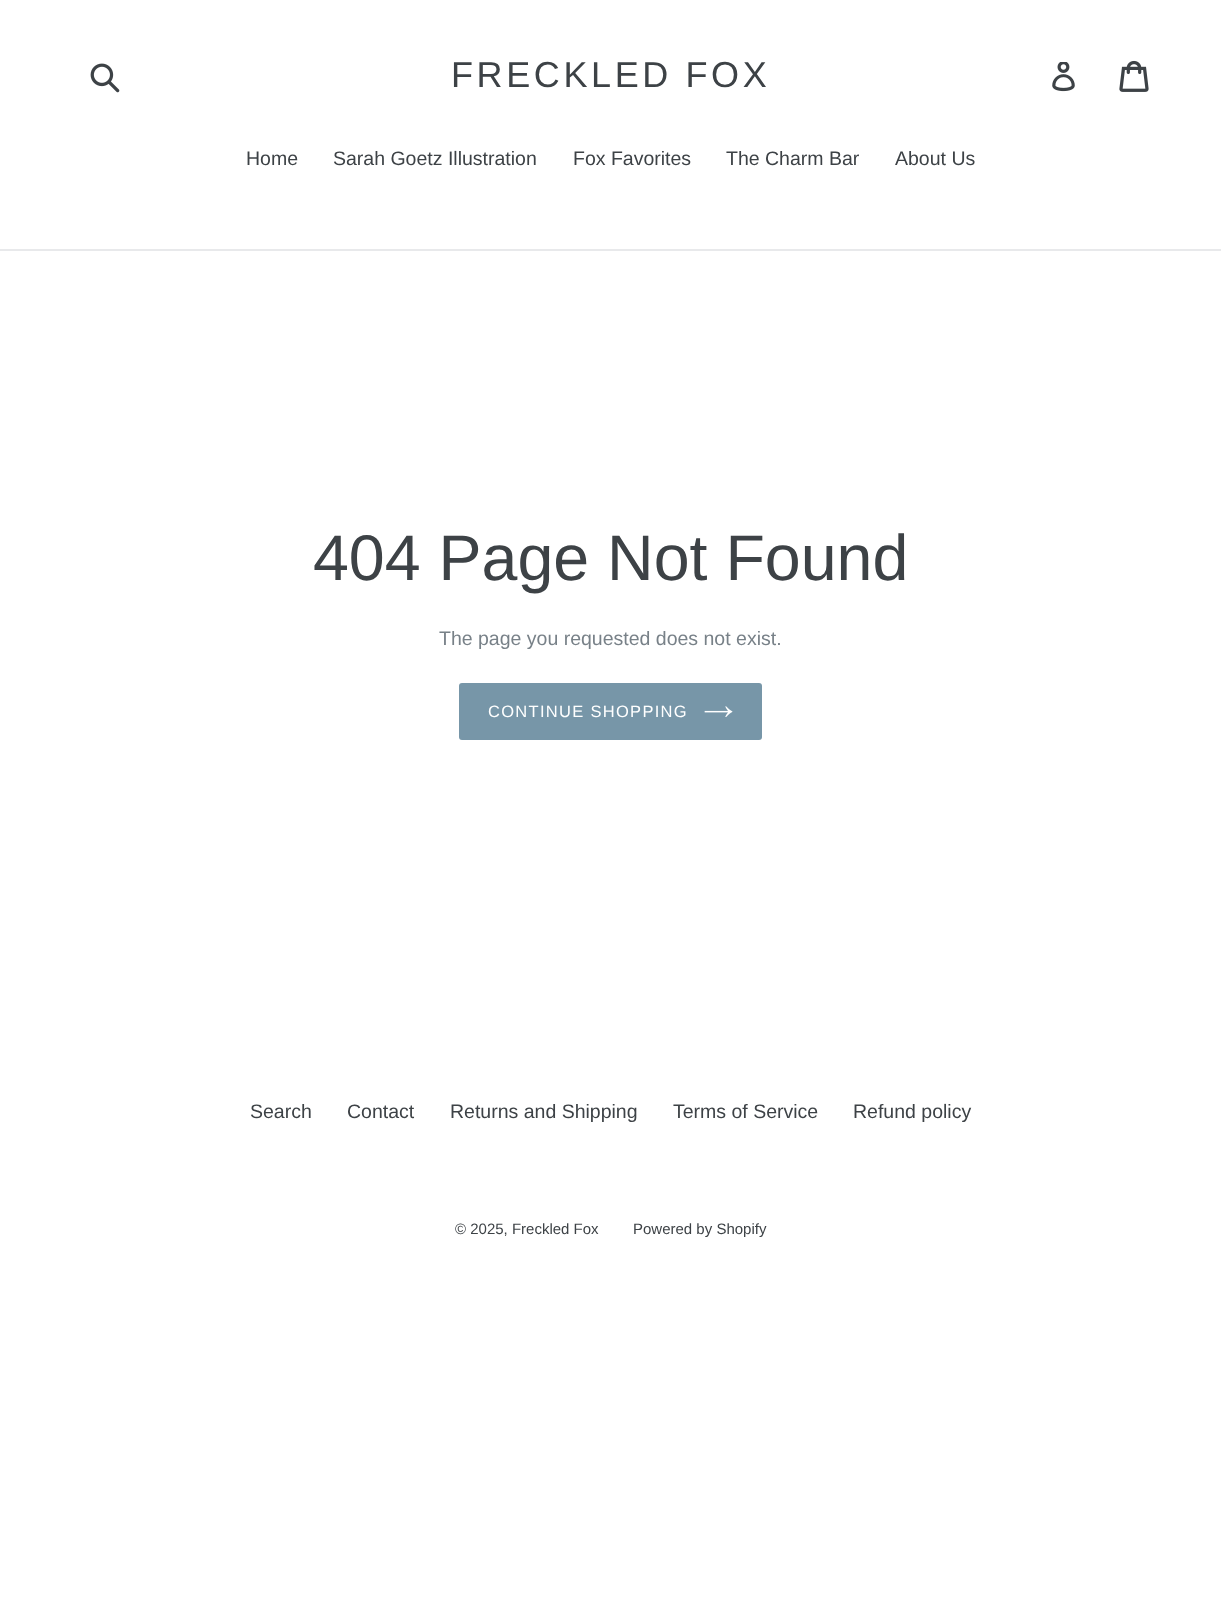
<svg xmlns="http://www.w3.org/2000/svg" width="1221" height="1613">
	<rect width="100%" height="100%" fill="#FFFFFF" />
	<image x="90" y="63" width="30" height="30" href="assets/img1.png" />
	<text x="451" y="87" font-family="Liberation Sans" font-size="36" letter-spacing="3.6" fill="#3D4246">FRECKLED FOX</text>
	<image x="1052" y="62" width="23" height="30" href="assets/img2.png" />
	<image x="1119" y="60" width="30" height="32" href="assets/img3.png" />
	<rect x="0" y="249" width="1221" height="2" fill="#E8E9EB" />
	<g font-family="Liberation Sans" font-size="19.5" fill="#3D4246">
		<text x="246" y="165">Home</text>
		<text x="333" y="165">Sarah Goetz Illustration</text>
		<text x="573" y="165">Fox Favorites</text>
		<text x="726" y="165">The Charm Bar</text>
		<text x="895" y="165">About Us</text>
	</g>
	<text x="313" y="580" font-family="Liberation Sans" font-size="64.5" fill="#3D4246">404 Page Not Found</text>
	<text x="439" y="645" font-family="Liberation Sans" font-size="19.5" fill="#788188">The page you requested does not exist.</text>
	<rect x="459" y="683" width="303" height="57" rx="3" fill="#7796A8" />
	<text x="488" y="717" font-family="Liberation Sans" font-size="16.5" letter-spacing="1.3" fill="#FFFFFF">CONTINUE SHOPPING</text>
	<image x="704" y="706" width="29" height="11" href="assets/img4.png" />
	<g font-family="Liberation Sans" font-size="19.5" fill="#3D4246">
		<text x="250" y="1118">Search</text>
		<text x="347" y="1118">Contact</text>
		<text x="450" y="1118">Returns and Shipping</text>
		<text x="673" y="1118">Terms of Service</text>
		<text x="853" y="1118">Refund policy</text>
	</g>
	<g font-family="Liberation Sans" font-size="15" fill="#3D4246">
		<text x="455" y="1234">© 2025, Freckled Fox</text>
		<text x="633" y="1234">Powered by Shopify</text>
	</g>
</svg>
